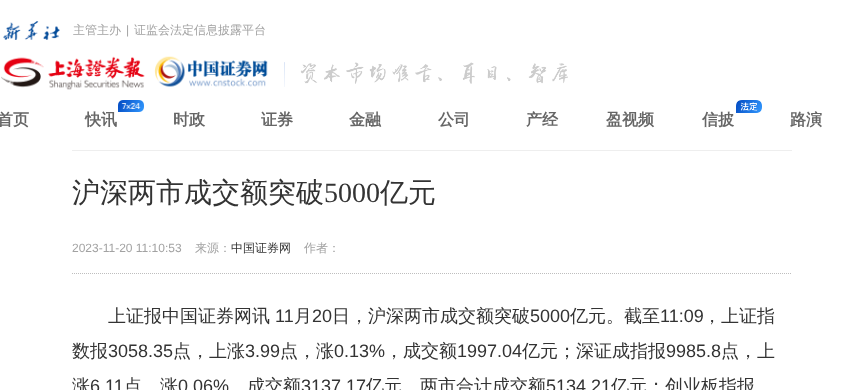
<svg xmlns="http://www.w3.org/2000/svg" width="864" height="390">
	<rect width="100%" height="100%" fill="#FFFFFF" />
	<image x="3" y="21" width="57" height="19" href="assets/img1.png" />
	<text x="73" y="34" font-family="WenQuanYi Zen Hei" font-size="12" font-weight="500" fill="#A2A2A2">主管主办</text>
	<text x="126" y="34" font-family="Liberation Sans" font-size="12" fill="#A2A2A2">|</text>
	<text x="134" y="34" font-family="WenQuanYi Zen Hei" font-size="12" font-weight="500" fill="#A2A2A2">证监会法定信息披露平台</text>
	<image x="1" y="56" width="267" height="34" href="assets/img2.png" />
	<image x="284" y="62" width="284" height="25" href="assets/img3.png" />
	<text x="-3" y="125" font-family="WenQuanYi Zen Hei" font-size="16" font-weight="700" fill="#666666">首页</text>
	<image x="118" y="100" width="26" height="12" href="assets/img4.png" />
	<g font-family="WenQuanYi Zen Hei" font-size="16" font-weight="700" fill="#666666">
		<text x="85" y="125">快讯</text>
		<text x="173" y="125">时政</text>
		<text x="261" y="125">证券</text>
		<text x="349" y="125">金融</text>
		<text x="438" y="125">公司</text>
		<text x="526" y="125">产经</text>
		<text x="606" y="125">盈视频</text>
	</g>
	<image x="736" y="100" width="26" height="13" href="assets/img5.png" />
	<g font-family="WenQuanYi Zen Hei" font-size="16" font-weight="700" fill="#666666">
		<text x="702" y="125">信披</text>
		<text x="790" y="125">路演</text>
	</g>
	<rect x="72" y="150" width="720" height="1" fill="#EEEEEE" />
	<text x="72" y="202" font-family="WenQuanYi Zen Hei" font-size="28" font-weight="500" fill="#333333">沪深两市成交额突破</text>
	<text x="324" y="202" font-family="Liberation Serif" font-size="28" fill="#333333">5000</text>
	<text x="380" y="202" font-family="WenQuanYi Zen Hei" font-size="28" font-weight="500" fill="#333333">亿元</text>
	<text x="72" y="252" font-family="Liberation Sans" font-size="12" fill="#A2A2A2">2023-11-20 11:10:53</text>
	<text x="195" y="252" font-family="WenQuanYi Zen Hei" font-size="12" font-weight="500" fill="#A2A2A2">来源：</text>
	<text x="231" y="252" font-family="WenQuanYi Zen Hei" font-size="12" font-weight="500" fill="#333333">中国证券网</text>
	<text x="304" y="252" font-family="WenQuanYi Zen Hei" font-size="12" font-weight="500" fill="#A2A2A2">作者：</text>
	<path d="M72 273.5H792" fill="none" stroke="#BEBEBE" stroke-dasharray="1 1" />
	<text x="108" y="322" font-family="WenQuanYi Zen Hei" font-size="18" font-weight="500" fill="#333333">上证报中国证券网讯</text>
	<text x="275" y="322" font-family="Liberation Sans" font-size="18" fill="#333333">11</text>
	<text x="294" y="322" font-family="WenQuanYi Zen Hei" font-size="18" font-weight="500" fill="#333333">月</text>
	<text x="312" y="322" font-family="Liberation Sans" font-size="18" fill="#333333">20</text>
	<text x="332" y="322" font-family="WenQuanYi Zen Hei" font-size="18" font-weight="500" fill="#333333">日，沪深两市成交额突破</text>
	<text x="530" y="322" font-family="Liberation Sans" font-size="18" fill="#333333">5000</text>
	<text x="570" y="322" font-family="WenQuanYi Zen Hei" font-size="18" font-weight="500" fill="#333333">亿元。截至</text>
	<text x="660" y="322" font-family="Liberation Sans" font-size="18" fill="#333333">11:09</text>
	<g font-family="WenQuanYi Zen Hei" font-size="18" font-weight="500" fill="#333333">
		<text x="703" y="322">，上证指</text>
		<text x="72" y="357">数报</text>
	</g>
	<text x="108" y="357" font-family="Liberation Sans" font-size="18" fill="#333333">3058.35</text>
	<text x="173" y="357" font-family="WenQuanYi Zen Hei" font-size="18" font-weight="500" fill="#333333">点，上涨</text>
	<text x="245" y="357" font-family="Liberation Sans" font-size="18" fill="#333333">3.99</text>
	<text x="280" y="357" font-family="WenQuanYi Zen Hei" font-size="18" font-weight="500" fill="#333333">点，涨</text>
	<text x="334" y="357" font-family="Liberation Sans" font-size="18" fill="#333333">0.13%</text>
	<text x="385" y="357" font-family="WenQuanYi Zen Hei" font-size="18" font-weight="500" fill="#333333">，成交额</text>
	<text x="457" y="357" font-family="Liberation Sans" font-size="18" fill="#333333">1997.04</text>
	<text x="522" y="357" font-family="WenQuanYi Zen Hei" font-size="18" font-weight="500" fill="#333333">亿元；深证成指报</text>
	<text x="666" y="357" font-family="Liberation Sans" font-size="18" fill="#333333">9985.8</text>
	<g font-family="WenQuanYi Zen Hei" font-size="18" font-weight="500" fill="#333333">
		<text x="721" y="357">点，上</text>
		<text x="72" y="392">涨</text>
	</g>
	<text x="90" y="392" font-family="Liberation Sans" font-size="18" fill="#333333">6.11</text>
	<text x="124" y="392" font-family="WenQuanYi Zen Hei" font-size="18" font-weight="500" fill="#333333">点，涨</text>
	<text x="178" y="392" font-family="Liberation Sans" font-size="18" fill="#333333">0.06%</text>
	<text x="247" y="392" font-family="WenQuanYi Zen Hei" font-size="18" font-weight="500" fill="#333333">成交额</text>
	<text x="301" y="392" font-family="Liberation Sans" font-size="18" fill="#333333">3137.17</text>
	<text x="366" y="392" font-family="WenQuanYi Zen Hei" font-size="18" font-weight="500" fill="#333333">亿元，两市合计成交额</text>
	<text x="546" y="392" font-family="Liberation Sans" font-size="18" fill="#333333">5134.21</text>
	<text x="611" y="392" font-family="WenQuanYi Zen Hei" font-size="18" font-weight="500" fill="#333333">亿元；创业板指报</text>
</svg>
